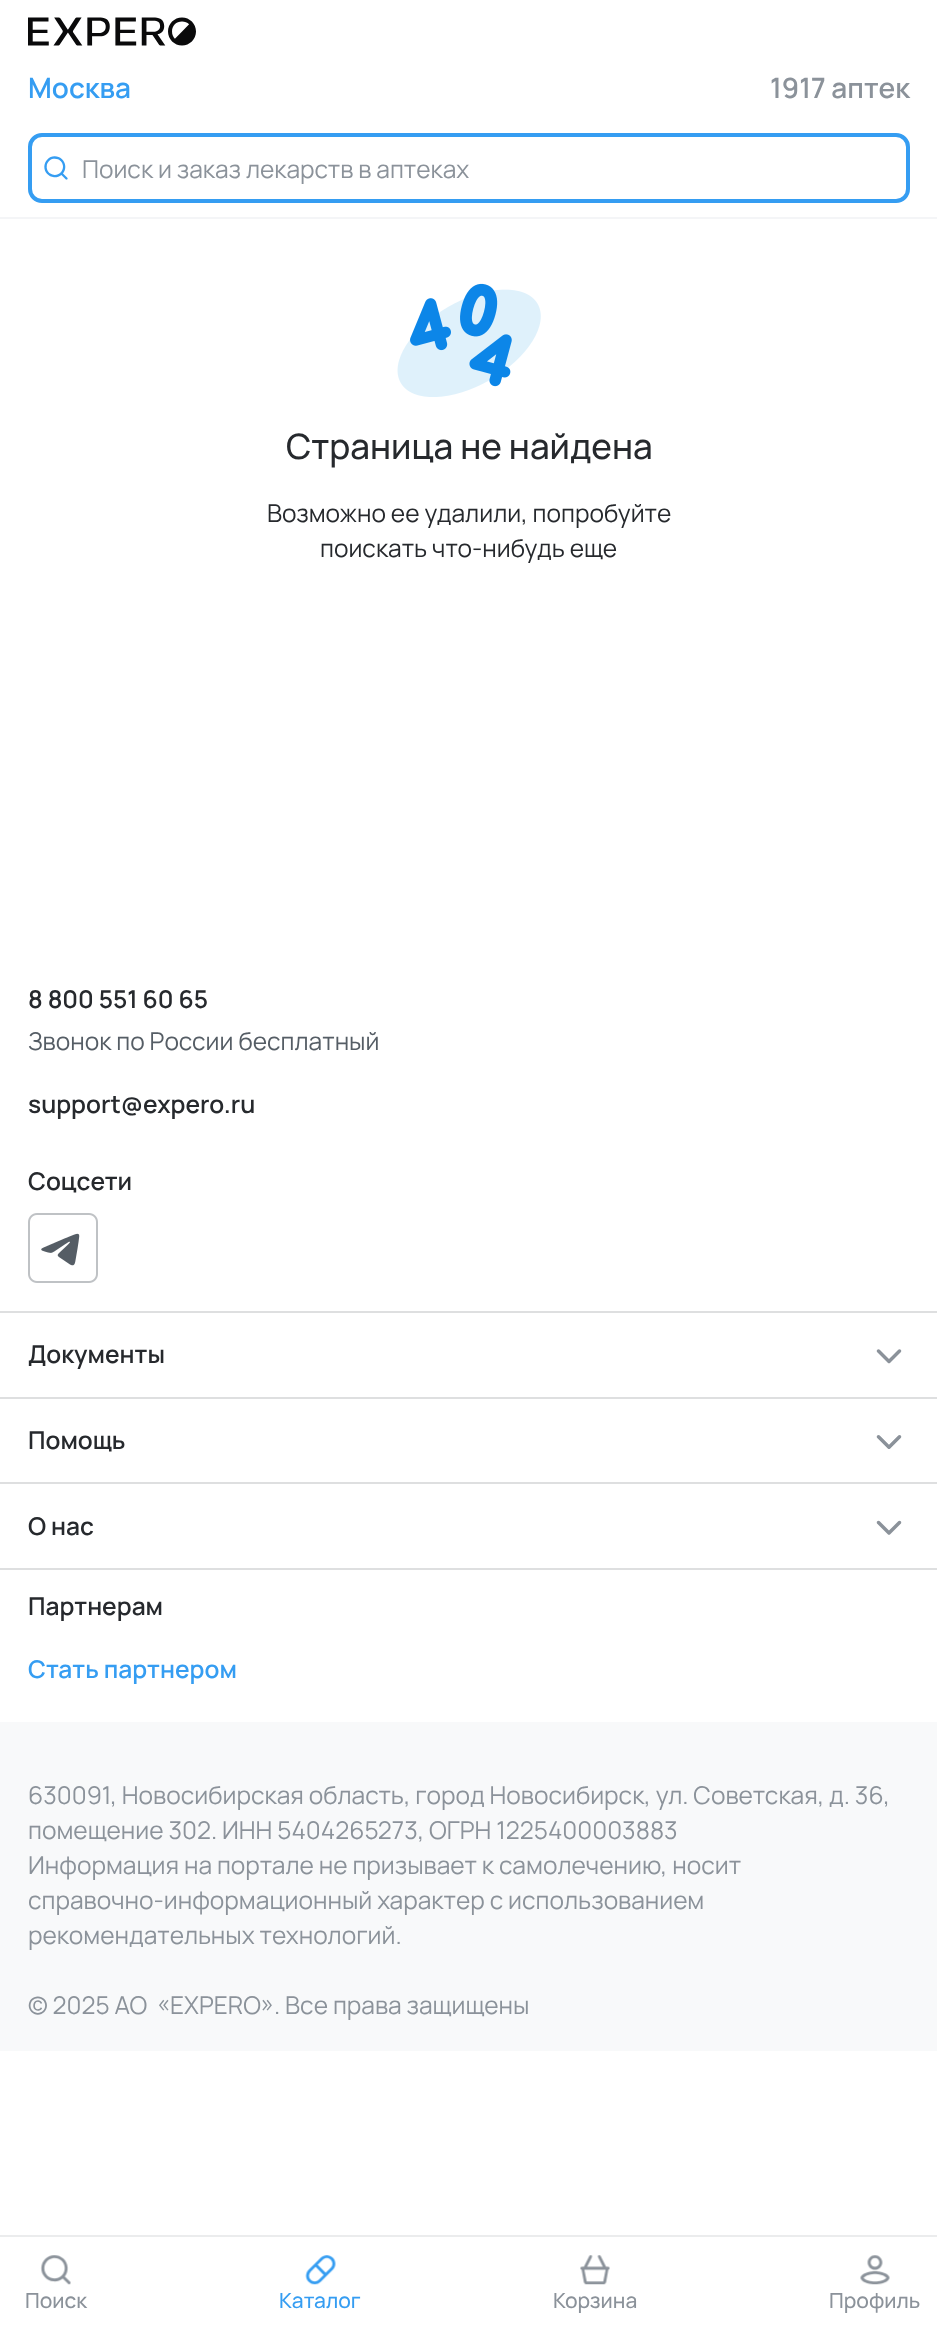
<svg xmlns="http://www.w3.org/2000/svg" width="937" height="2333">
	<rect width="100%" height="100%" fill="#FFFFFF" />
	<rect x="0" y="217" width="937" height="2" fill="#F4F5F7" />
	<image x="28" y="17" width="168" height="29" href="assets/img1.png" />
	<text x="28" y="98" font-family="Manrope" font-size="28" font-weight="600" fill="#359DF2">Москва</text>
	<text x="770" y="98" font-family="Manrope" font-size="28" font-weight="600" fill="#8B929A">1917 аптек</text>
	<rect x="30" y="135" width="878" height="66" rx="12" fill="none" stroke="#359DF2" stroke-width="4" />
	<image x="44" y="156" width="24" height="24" href="assets/img2.png" />
	<text x="82" y="178" font-family="Manrope" font-size="24.5" fill="#8B929A">Поиск и заказ лекарств в аптеках</text>
	<image x="397" y="283" width="144" height="114" href="assets/img3.png" />
	<text x="286" y="459" font-family="Manrope" font-size="35" font-weight="500" fill="#26292D">Страница не найдена</text>
	<g font-family="Manrope" font-size="24.5" fill="#26292D">
		<text x="267" y="522">Возможно ее удалили, попробуйте</text>
		<text x="320" y="557">поискать что-нибудь еще</text>
	</g>
	<text x="28" y="1008" font-family="Manrope" font-size="24.5" font-weight="600" fill="#26292D">8 800 551 60 65</text>
	<text x="28" y="1050" font-family="Manrope" font-size="24.5" fill="#555D65">Звонок по России бесплатный</text>
	<g font-family="Manrope" font-size="24.5" font-weight="600" fill="#26292D">
		<text x="28" y="1113">support@expero.ru</text>
		<text x="28" y="1190">Соцсети</text>
	</g>
	<image x="28" y="1213" width="70" height="70" href="assets/img4.png" />
	<rect x="0" y="1311" width="937" height="2" fill="#DEDFE0" />
	<text x="28" y="1363" font-family="Manrope" font-size="24.5" font-weight="600" fill="#26292D">Документы</text>
	<image x="876" y="1349" width="26" height="15" href="assets/img5.png" />
	<rect x="0" y="1397" width="937" height="2" fill="#DEDFE0" />
	<text x="28" y="1449" font-family="Manrope" font-size="24.5" font-weight="600" fill="#26292D">Помощь</text>
	<image x="876" y="1435" width="26" height="14" href="assets/img6.png" />
	<rect x="0" y="1482" width="937" height="2" fill="#DEDFE0" />
	<text x="28" y="1535" font-family="Manrope" font-size="24.5" font-weight="600" fill="#26292D">О нас</text>
	<image x="876" y="1520" width="26" height="15" href="assets/img7.png" />
	<rect x="0" y="1568" width="937" height="2" fill="#DEDFE0" />
	<text x="28" y="1615" font-family="Manrope" font-size="24.5" font-weight="600" fill="#26292D">Партнерам</text>
	<text x="28" y="1678" font-family="Manrope" font-size="24.5" font-weight="600" fill="#359DF2">Стать партнером</text>
	<rect x="0" y="1722" width="937" height="329" fill="#F8F9FA" />
	<g font-family="Manrope" font-size="24.5" fill="#8B929A">
		<text x="28" y="1804">630091, Новосибирская область, город Новосибирск, ул. Советская, д. 36,</text>
		<text x="28" y="1839">помещение 302. ИНН 5404265273, ОГРН 1225400003883</text>
		<text x="28" y="1874">Информация на портале не призывает к самолечению, носит</text>
		<text x="28" y="1909">справочно‑информационный характер с использованием</text>
		<text x="28" y="1944">рекомендательных технологий.</text>
		<text x="28" y="2014">© 2025 АО</text>
		<text x="157" y="2014">«EXPERO». Все права защищены</text>
	</g>
	<rect x="0" y="2235" width="937" height="2" fill="#EBECED" />
	<image x="40" y="2255" width="31" height="30" href="assets/img8.png" />
	<text x="25" y="2308" font-family="Manrope" font-size="21" font-weight="500" fill="#8B929A">Поиск</text>
	<image x="305" y="2255" width="31" height="30" href="assets/img9.png" />
	<text x="279" y="2308" font-family="Manrope" font-size="21" font-weight="500" fill="#359DF2">Каталог</text>
	<image x="580" y="2255" width="30" height="30" href="assets/img10.png" />
	<text x="553" y="2308" font-family="Manrope" font-size="21" font-weight="500" fill="#8B929A">Корзина</text>
	<image x="860" y="2255" width="30" height="30" href="assets/img11.png" />
	<text x="829" y="2308" font-family="Manrope" font-size="21" font-weight="500" fill="#8B929A">Профиль</text>
</svg>
